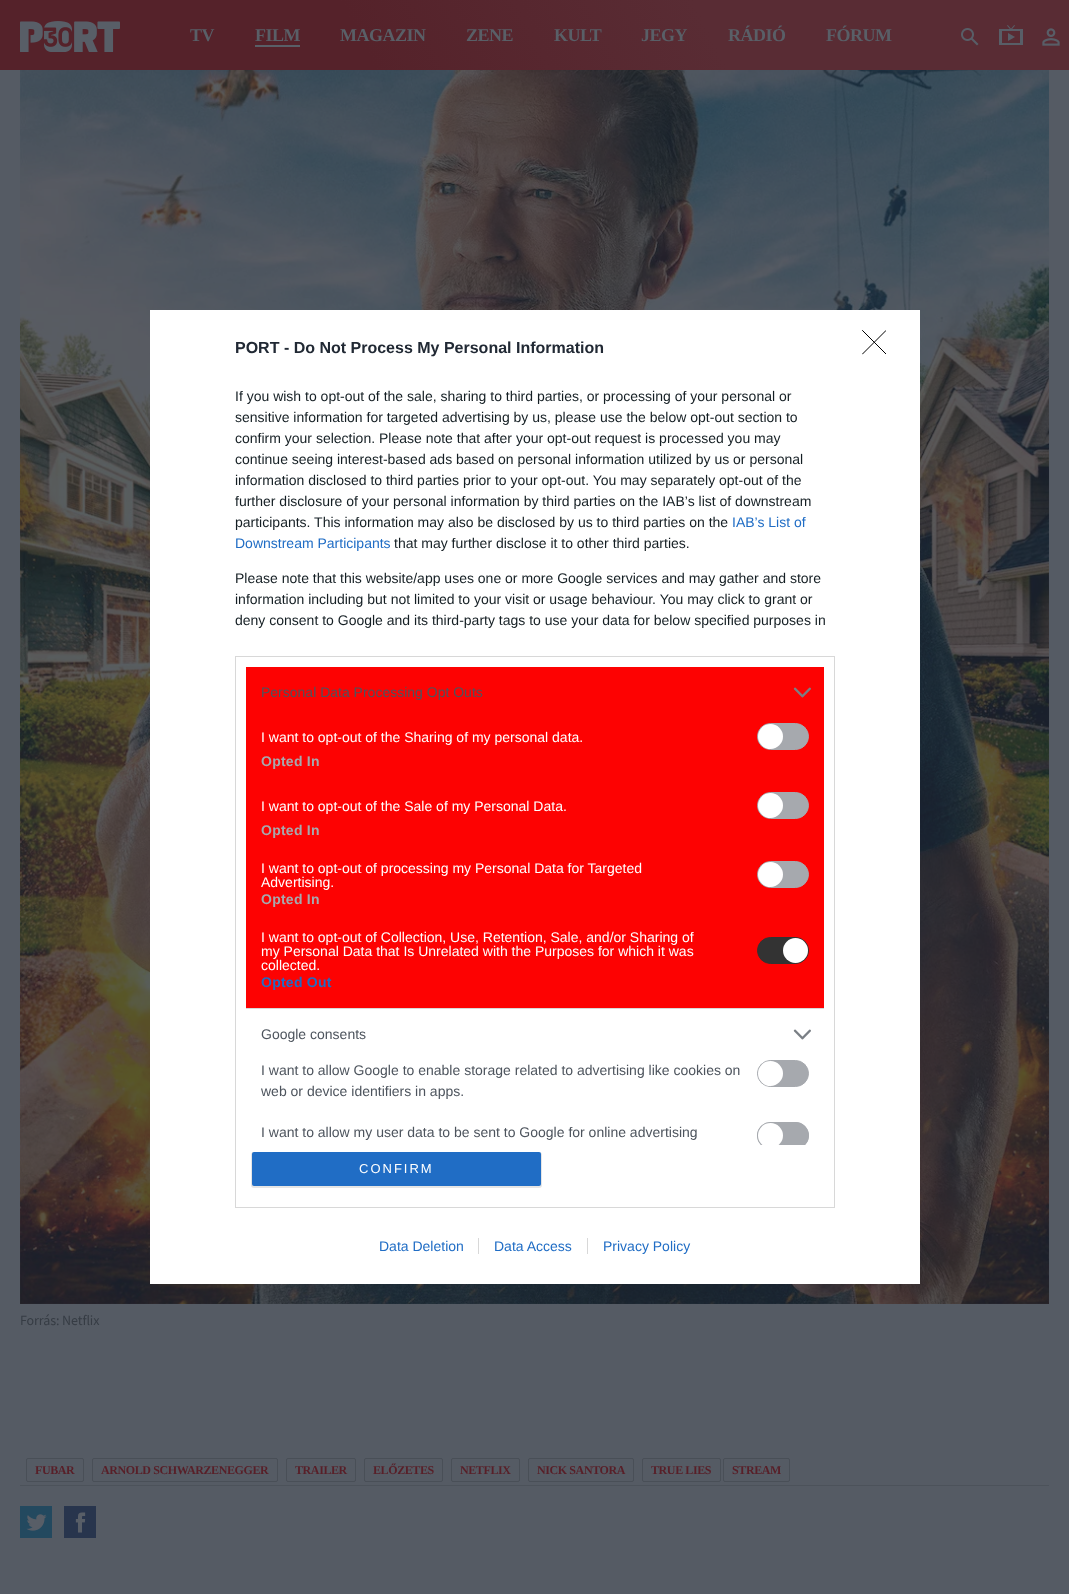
<svg xmlns="http://www.w3.org/2000/svg" width="1069" height="1594">
	<defs>
		<linearGradient id="g1" gradientUnits="userSpaceOnUse" x1="973" y1="-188" x2="96" y2="258"><stop offset="0.34" stop-color="#592C34" /><stop offset="0.66" stop-color="#55222A" /></linearGradient>
		<clipPath id="clip1"><rect x="246" y="667" width="578" height="478" /></clipPath>
		<clipPath id="clip2"><rect x="246" y="1009" width="578" height="136" /></clipPath>
		<clipPath id="clip3"><rect x="862" y="330" width="24" height="25" /></clipPath>
	</defs>
	<rect width="100%" height="100%" fill="#555B64" />
	<rect x="0" y="0" width="1069" height="70" fill="url(#g1)" />
	<image x="20" y="21" width="100" height="31" href="assets/img1.png" />
	<text x="190" y="41" font-family="Liberation Serif" font-size="18" font-weight="700" letter-spacing="-0.5" fill="#595F67">TV</text>
	<rect x="255" y="45" width="45" height="2" fill="#595F67" />
	<g font-family="Liberation Serif" font-size="18" font-weight="700" letter-spacing="-0.5" fill="#595F67">
		<text x="255" y="41">FILM</text>
		<text x="340" y="41">MAGAZIN</text>
		<text x="466" y="41">ZENE</text>
		<text x="554" y="41">KULT</text>
		<text x="641" y="41">JEGY</text>
		<text x="728" y="41">RÁDIÓ</text>
		<text x="826" y="41">FÓRUM</text>
	</g>
	<image x="961" y="28" width="18" height="18" href="assets/img2.png" />
	<image x="999" y="25" width="24" height="20" href="assets/img3.png" />
	<image x="1042" y="28" width="18" height="18" href="assets/img4.png" />
	<image x="20" y="70" width="1029" height="1234" href="assets/img5.png" />
	<text x="20" y="1325" font-family="Source Sans Pro" font-size="14" letter-spacing="-0.1" fill="#363C44">Forrás: Netflix</text>
	<rect x="20" y="1485" width="1029" height="1" fill="#4C525A" />
	<rect x="26.5" y="1458.5" width="57" height="23" rx="1.5" fill="none" stroke="#494F57" />
	<text x="35" y="1474" font-family="Liberation Serif" font-size="12" font-weight="700" letter-spacing="-0.4" fill="#581F28">FUBAR</text>
	<rect x="92.5" y="1458.5" width="185" height="23" rx="1.5" fill="none" stroke="#494F57" />
	<text x="101" y="1474" font-family="Liberation Serif" font-size="12" font-weight="700" letter-spacing="-0.4" fill="#581F28">ARNOLD SCHWARZENEGGER</text>
	<rect x="286.5" y="1458.5" width="69" height="23" rx="1.5" fill="none" stroke="#494F57" />
	<text x="295" y="1474" font-family="Liberation Serif" font-size="12" font-weight="700" letter-spacing="-0.4" fill="#581F28">TRAILER</text>
	<rect x="364.5" y="1458.5" width="78" height="23" rx="1.5" fill="none" stroke="#494F57" />
	<text x="373" y="1474" font-family="Liberation Serif" font-size="12" font-weight="700" letter-spacing="-0.4" fill="#581F28">ELŐZETES</text>
	<rect x="451.5" y="1458.5" width="68" height="23" rx="1.5" fill="none" stroke="#494F57" />
	<text x="460" y="1474" font-family="Liberation Serif" font-size="12" font-weight="700" letter-spacing="-0.4" fill="#581F28">NETFLIX</text>
	<rect x="528.5" y="1458.5" width="105" height="23" rx="1.5" fill="none" stroke="#494F57" />
	<text x="537" y="1474" font-family="Liberation Serif" font-size="12" font-weight="700" letter-spacing="-0.4" fill="#581F28">NICK SANTORA</text>
	<rect x="642.5" y="1458.5" width="78" height="23" rx="1.5" fill="none" stroke="#494F57" />
	<text x="651" y="1474" font-family="Liberation Serif" font-size="12" font-weight="700" letter-spacing="-0.4" fill="#581F28">TRUE LIES</text>
	<rect x="723.5" y="1458.5" width="66" height="23" rx="1.5" fill="none" stroke="#494F57" />
	<text x="732" y="1474" font-family="Liberation Serif" font-size="12" font-weight="700" letter-spacing="-0.4" fill="#581F28">STREAM</text>
	<rect x="20" y="1506" width="32" height="32" fill="#23495F" />
	<image x="26" y="1514" width="21" height="17" href="assets/img6.png" />
	<rect x="64" y="1506" width="32" height="32" fill="#28354D" />
	<image x="75" y="1512" width="11" height="21" href="assets/img7.png" />
	<rect x="150" y="310" width="770" height="974" fill="#FFFFFF" />
	<text x="235" y="353" font-family="Liberation Sans" font-size="16" font-weight="700" fill="#212934">PORT - Do Not Process My Personal Information</text>
	<g font-family="Liberation Sans" font-size="14" fill="#141E23">
		<text x="235" y="401">If you wish to opt-out of the sale, sharing to third parties, or processing of your personal or</text>
		<text x="235" y="422">sensitive information for targeted advertising by us, please use the below opt-out section to</text>
		<text x="235" y="443">confirm your selection. Please note that after your opt-out request is processed you may</text>
		<text x="235" y="464">continue seeing interest-based ads based on personal information utilized by us or personal</text>
		<text x="235" y="485">information disclosed to third parties prior to your opt-out. You may separately opt-out of the</text>
		<text x="235" y="506">further disclosure of your personal information by third parties on the IAB’s list of downstream</text>
		<text x="235" y="527">participants. This information may also be disclosed by us to third parties on the</text>
	</g>
	<g font-family="Liberation Sans" font-size="14" fill="#206DC5">
		<text x="732" y="527">IAB’s List of</text>
		<text x="235" y="548">Downstream Participants</text>
	</g>
	<g font-family="Liberation Sans" font-size="14" fill="#141E23">
		<text x="394" y="548">that may further disclose it to other third parties.</text>
		<text x="235" y="583">Please note that this website/app uses one or more Google services and may gather and store</text>
		<text x="235" y="604">information including but not limited to your visit or usage behaviour. You may click to grant or</text>
		<text x="235" y="625">deny consent to Google and its third-party tags to use your data for below specified purposes in</text>
	</g>
	<rect x="235.5" y="656.5" width="599" height="551" fill="none" stroke="#D8D8D8" />
	<rect x="246" y="667" width="578" height="341" fill="#FD0202" />
	<rect x="246" y="1008" width="578" height="1" fill="#D8D8D8" />
	<text x="261" y="697" font-family="Liberation Sans" font-size="14" fill="#4D545D">Personal Data Processing Opt Outs</text>
	<image x="793" y="687" width="18" height="11" href="assets/img8.png" />
	<text x="261" y="742" font-family="Liberation Sans" font-size="14" fill="#FFFFFF">I want to opt-out of the Sharing of my personal data.</text>
	<rect x="757.5" y="723.5" width="51" height="26" rx="13" fill="#A6A9AE" stroke="#A6A9AE" />
	<circle cx="770.5" cy="736.5" r="12.5" fill="#FFFFFF" />
	<text x="261" y="766" font-family="Liberation Sans" font-size="14" font-weight="700" letter-spacing="0.25" fill="#A6A9AE">Opted In</text>
	<text x="261" y="811" font-family="Liberation Sans" font-size="14" fill="#FFFFFF">I want to opt-out of the Sale of my Personal Data.</text>
	<rect x="757.5" y="792.5" width="51" height="26" rx="13" fill="#A6A9AE" stroke="#A6A9AE" />
	<circle cx="770.5" cy="805.5" r="12.5" fill="#FFFFFF" />
	<text x="261" y="835" font-family="Liberation Sans" font-size="14" font-weight="700" letter-spacing="0.25" fill="#A6A9AE">Opted In</text>
	<g font-family="Liberation Sans" font-size="14" fill="#FFFFFF">
		<text x="261" y="873">I want to opt-out of processing my Personal Data for Targeted</text>
		<text x="261" y="887">Advertising.</text>
	</g>
	<rect x="757.5" y="861.5" width="51" height="26" rx="13" fill="#A6A9AE" stroke="#A6A9AE" />
	<circle cx="770.5" cy="874.5" r="12.5" fill="#FFFFFF" />
	<text x="261" y="904" font-family="Liberation Sans" font-size="14" font-weight="700" letter-spacing="0.25" fill="#A6A9AE">Opted In</text>
	<g font-family="Liberation Sans" font-size="14" fill="#FFFFFF">
		<text x="261" y="942">I want to opt-out of Collection, Use, Retention, Sale, and/or Sharing of</text>
		<text x="261" y="956">my Personal Data that Is Unrelated with the Purposes for which it was</text>
		<text x="261" y="970">collected.</text>
	</g>
	<rect x="757.5" y="937.5" width="51" height="26" rx="13" fill="#333333" stroke="#333333" />
	<circle cx="795.5" cy="950.5" r="12.5" fill="#FFFFFF" />
	<text x="261" y="987" font-family="Liberation Sans" font-size="14" font-weight="700" letter-spacing="0.25" fill="#206DC5">Opted Out</text>
	<text x="261" y="1039" font-family="Liberation Sans" font-size="14" fill="#4D545D">Google consents</text>
	<image x="793" y="1029" width="18" height="11" href="assets/img9.png" />
	<g font-family="Liberation Sans" font-size="14" fill="#4D545D">
		<text x="261" y="1075">I want to allow Google to enable storage related to advertising like cookies on</text>
		<text x="261" y="1096">web or device identifiers in apps.</text>
	</g>
	<rect x="757.5" y="1060.5" width="51" height="26" rx="13" fill="#A6A9AE" stroke="#A6A9AE" />
	<circle cx="770.5" cy="1073.5" r="12.5" fill="#FFFFFF" />
	<text x="261" y="1137" font-family="Liberation Sans" font-size="14" fill="#4D545D">I want to allow my user data to be sent to Google for online advertising</text>
	<g clip-path="url(#clip1)">
		<rect x="757" y="1122" width="52" height="27" rx="13.5" fill="#A6A9AE" />
	</g>
	<g clip-path="url(#clip2)">
		<rect x="757.5" y="1122.5" width="51" height="26" rx="13" fill="none" stroke="#A6A9AE" />
	</g>
	<g clip-path="url(#clip1)">
		<circle cx="770.5" cy="1135.5" r="12.5" fill="#FFFFFF" />
	</g>
	<rect x="251" y="1152" width="291" height="36" rx="3" fill="#000000" fill-opacity="0.1" filter="blur(0.5px)" />
	<rect x="252" y="1152" width="289" height="34" rx="2" fill="#206DC5" />
	<text x="359" y="1173" font-family="Liberation Sans" font-size="13" letter-spacing="2" fill="#FFFFFF">CONFIRM</text>
	<g clip-path="url(#clip3)">
		<path d="M862.5 330.5L886 354M886 330.5L862.5 354" fill="none" stroke="#000000" stroke-linecap="round" stroke-linejoin="round" />
	</g>
	<g font-family="Liberation Sans" font-size="14" fill="#206DC5">
		<text x="379" y="1251">Data Deletion</text>
		<text x="494" y="1251">Data Access</text>
	</g>
	<rect x="478" y="1238" width="1" height="16" fill="#D8D8D8" />
	<text x="603" y="1251" font-family="Liberation Sans" font-size="14" fill="#206DC5">Privacy Policy</text>
	<rect x="587" y="1238" width="1" height="16" fill="#D8D8D8" />
</svg>
